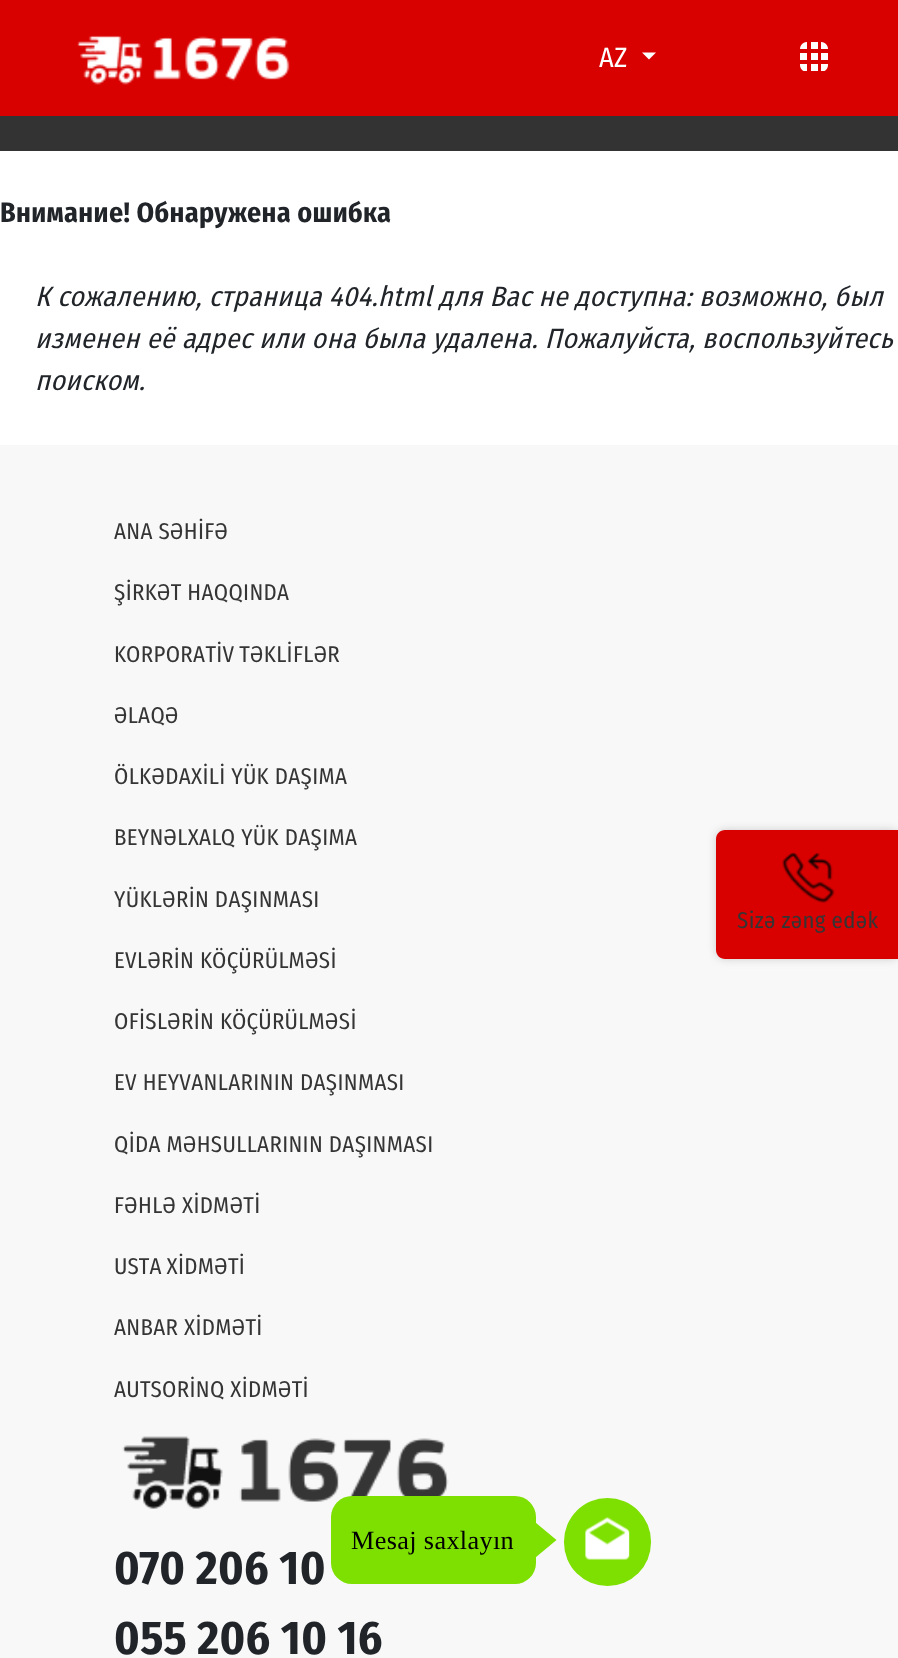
<svg xmlns="http://www.w3.org/2000/svg" width="898" height="1658">
	<rect width="100%" height="100%" fill="#FFFFFF" />
	<rect x="0" y="0" width="898" height="116" fill="#D90000" />
	<image x="77" y="35" width="213" height="50" href="assets/img1.png" />
	<text x="599" y="67" font-family="Fira Sans Condensed" font-size="28" letter-spacing="0.35" fill="#FFFFFF">AZ</text>
	<path d="M642 52.5H656L649 59.5Z" fill="#FFFFFF" />
	<image x="800" y="42" width="28" height="29" href="assets/img2.png" />
	<rect x="0" y="116" width="898" height="35" fill="#333333" />
	<text x="0" y="222" font-family="Fira Sans Condensed" font-size="28" font-weight="700" letter-spacing="0.35" fill="#212529">Внимание! Обнаружена ошибка</text>
	<g font-family="Fira Sans Condensed" font-size="28" font-style="italic" letter-spacing="0.35" fill="#212529">
		<text x="35" y="306">К сожалению, страница 404.html для Вас не доступна: возможно, был</text>
		<text x="35" y="348">изменен её адрес или она была удалена. Пожалуйста, воспользуйтесь</text>
		<text x="35" y="390">поиском.</text>
	</g>
	<rect x="0" y="445" width="898" height="1213" fill="#F8F8F8" />
	<g font-family="Fira Sans Condensed" font-size="22.75" letter-spacing="0.35" fill="#353535">
		<text x="114" y="539">ANA SƏHİFƏ</text>
		<text x="114" y="600">ŞİRKƏT HAQQINDA</text>
		<text x="114" y="662" word-spacing="-1">KORPORATİV TƏKLİFLƏR</text>
		<text x="114" y="723">ƏLAQƏ</text>
		<text x="114" y="784">ÖLKƏDAXİLİ YÜK DAŞIMA</text>
		<text x="114" y="845">BEYNƏLXALQ YÜK DAŞIMA</text>
		<text x="114" y="907">YÜKLƏRİN DAŞINMASI</text>
		<text x="114" y="968">EVLƏRİN KÖÇÜRÜLMƏSİ</text>
		<text x="114" y="1029">OFİSLƏRİN KÖÇÜRÜLMƏSİ</text>
		<text x="114" y="1090">EV HEYVANLARININ DAŞINMASI</text>
		<text x="114" y="1152">QİDA MƏHSULLARININ DAŞINMASI</text>
		<text x="114" y="1213">FƏHLƏ XİDMƏTİ</text>
		<text x="114" y="1274" word-spacing="-1">USTA XİDMƏTİ</text>
		<text x="114" y="1335">ANBAR XİDMƏTİ</text>
		<text x="114" y="1397">AUTSORİNQ XİDMƏTİ</text>
	</g>
	<image x="122" y="1436" width="327" height="73" href="assets/img3.png" />
	<g font-family="Fira Sans Condensed" font-size="47.25" font-weight="700" letter-spacing="0.35" fill="#212529">
		<text x="114" y="1584">070 206 10</text>
		<text x="114" y="1654">055 206 10 16</text>
	</g>
	<rect x="716" y="830" width="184" height="129" rx="9" fill="#CCCCCC" filter="blur(4.5px)" />
	<path d="M725 830H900V959H725C720 959 716 955 716 950V839C716 834 720 830 725 830Z" fill="#D90000" />
	<image x="782" y="852" width="53" height="51" href="assets/img4.png" />
	<text x="737" y="928" font-family="Fira Sans Condensed" font-size="22.75" letter-spacing="0.35" fill="#353535">Sizə zəng edək</text>
	<rect x="564" y="1498" width="87" height="88" rx="43.5" fill="#7EE000" />
	<rect x="331" y="1496" width="205" height="88" rx="21" fill="#7EE000" />
	<text x="351" y="1549" font-family="Liberation Serif" font-size="26.25" letter-spacing="0.35" fill="#000000">Mesaj saxlayın</text>
	<path d="M535.5 1557.5V1522.5L556.5 1540Z" fill="#7EE000" />
	<image x="585" y="1517" width="45" height="43" href="assets/img5.png" />
</svg>
